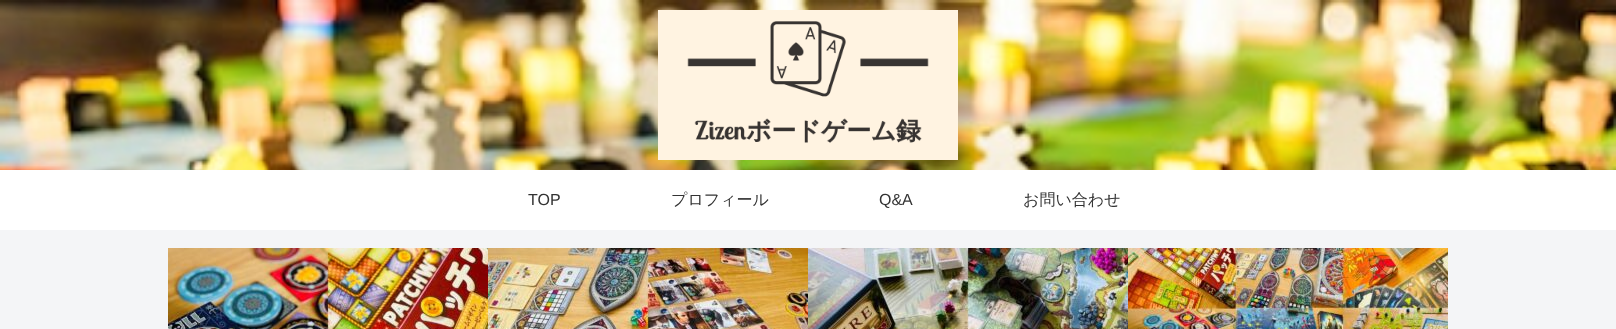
<svg xmlns="http://www.w3.org/2000/svg" width="1616" height="329">
	<rect width="100%" height="100%" fill="#F4F5F7" />
	<rect x="0" y="170" width="1616" height="60" fill="#FFFFFF" />
	<image x="0" y="0" width="1616" height="170" href="assets/img1.png" />
	<image x="658" y="10" width="300" height="150" href="assets/img2.png" />
	<text x="528" y="205" font-family="Liberation Sans" font-size="16" fill="#333333">TOP</text>
	<text x="671" y="205" font-family="WenQuanYi Zen Hei" font-size="16" font-weight="500" fill="#333333">プロフィール</text>
	<text x="879" y="205" font-family="Liberation Sans" font-size="16" fill="#333333">Q&amp;A</text>
	<text x="1023" y="205" font-family="WenQuanYi Zen Hei" font-size="16" font-weight="500" fill="#333333">お問い合わせ</text>
	<image x="168" y="248" width="320" height="81" href="assets/img3.png" />
	<image x="488" y="248" width="320" height="81" href="assets/img4.png" />
	<image x="808" y="248" width="320" height="81" href="assets/img5.png" />
	<image x="1128" y="248" width="320" height="81" href="assets/img6.png" />
</svg>
